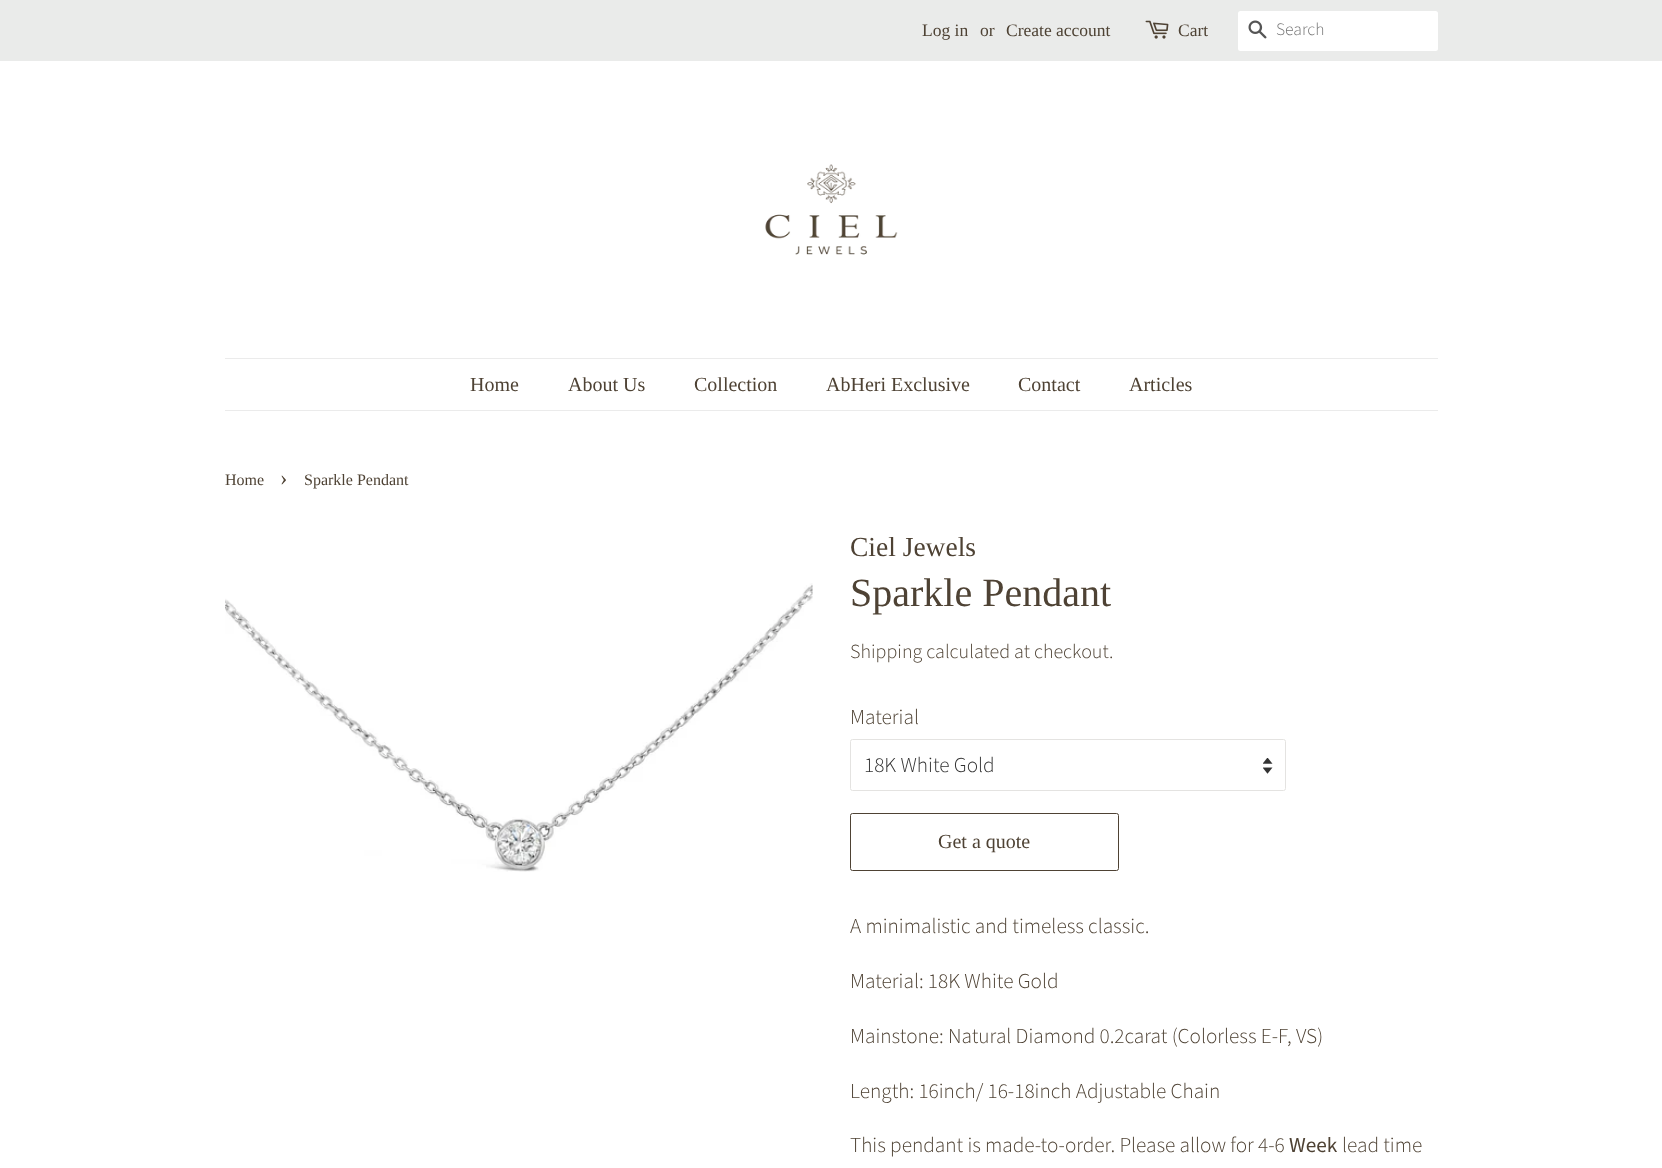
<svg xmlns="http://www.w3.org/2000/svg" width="1662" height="1168">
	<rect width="100%" height="100%" fill="#FFFFFF" />
	<rect x="0" y="0" width="1662" height="61" fill="#EAEBEA" />
	<g font-family="Liberation Serif" font-size="17.5" fill="#4E4234">
		<text x="922" y="36">Log in</text>
		<text x="980" y="36">or</text>
		<text x="1006" y="36">Create account</text>
	</g>
	<image x="1145" y="20" width="24" height="19" href="assets/img1.png" />
	<text x="1178" y="36" font-family="Liberation Serif" font-size="17.5" fill="#4E4234">Cart</text>
	<rect x="1238" y="11" width="200" height="40" rx="2.5" fill="#FFFFFF" />
	<image x="1248" y="20" width="19" height="19" href="assets/img2.png" />
	<text x="1276" y="35" font-family="Source Sans Pro" font-size="17.5" font-weight="300" fill="#757575">Search</text>
	<image x="765" y="164" width="133" height="91" href="assets/img3.png" />
	<rect x="225" y="358" width="1213" height="1" fill="#EBEBEB" />
	<rect x="225" y="410" width="1213" height="1" fill="#EBEBEB" />
	<g font-family="Liberation Serif" font-size="20" fill="#4E4234">
		<text x="470" y="391">Home</text>
		<text x="568" y="391">About Us</text>
		<text x="694" y="391">Collection</text>
		<text x="826" y="391">AbHeri Exclusive</text>
		<text x="1018" y="391">Contact</text>
		<text x="1129" y="391">Articles</text>
	</g>
	<text x="225" y="485" font-family="Liberation Serif" font-size="16" fill="#4E4234">Home</text>
	<text x="280" y="485" font-family="Liberation Serif" font-size="22" fill="#4E4234">›</text>
	<text x="304" y="485" font-family="Liberation Serif" font-size="16" fill="#4E4234">Sparkle Pendant</text>
	<image x="225" y="583" width="588" height="289" href="assets/img4.png" />
	<text x="850" y="556" font-family="Liberation Serif" font-size="27.5" fill="#4E4234">Ciel Jewels</text>
	<text x="850" y="606" font-family="Liberation Serif" font-size="40" fill="#4E4234">Sparkle Pendant</text>
	<text x="850" y="658" font-family="Source Sans Pro" font-size="20" font-weight="300" fill="#4E4234">Shipping calculated at checkout.</text>
	<text x="850" y="724" font-family="Source Sans Pro" font-size="21.25" font-weight="300" fill="#4E4234">Material</text>
	<image x="1263" y="758" width="10" height="16" href="assets/img5.png" />
	<rect x="850.5" y="739.5" width="435" height="51" rx="2" fill="none" stroke="#E4E3E1" />
	<text x="864" y="772" font-family="Source Sans Pro" font-size="21.25" font-weight="300" fill="#333333">18K White Gold</text>
	<rect x="850.5" y="813.5" width="268" height="57" rx="2" fill="none" stroke="#4E4234" />
	<text x="938" y="848" font-family="Liberation Serif" font-size="20" fill="#4E4234">Get a quote</text>
	<g font-family="Source Sans Pro" font-size="21.25" font-weight="300" fill="#4E4234">
		<text x="850" y="933">A minimalistic and timeless classic.</text>
		<text x="850" y="988">Material: 18K White Gold</text>
		<text x="850" y="1043">Mainstone: Natural Diamond 0.2carat (Colorless E-F, VS)</text>
		<text x="850" y="1098">Length: 16inch/ 16-18inch Adjustable Chain</text>
		<text x="850" y="1152">This pendant is made-to-order. Please allow for 4-6</text>
	</g>
	<text x="1289" y="1152" font-family="Source Sans Pro" font-size="21.25" fill="#4E4234">Week</text>
	<text x="1342" y="1152" font-family="Source Sans Pro" font-size="21.25" font-weight="300" fill="#4E4234">lead time</text>
</svg>
